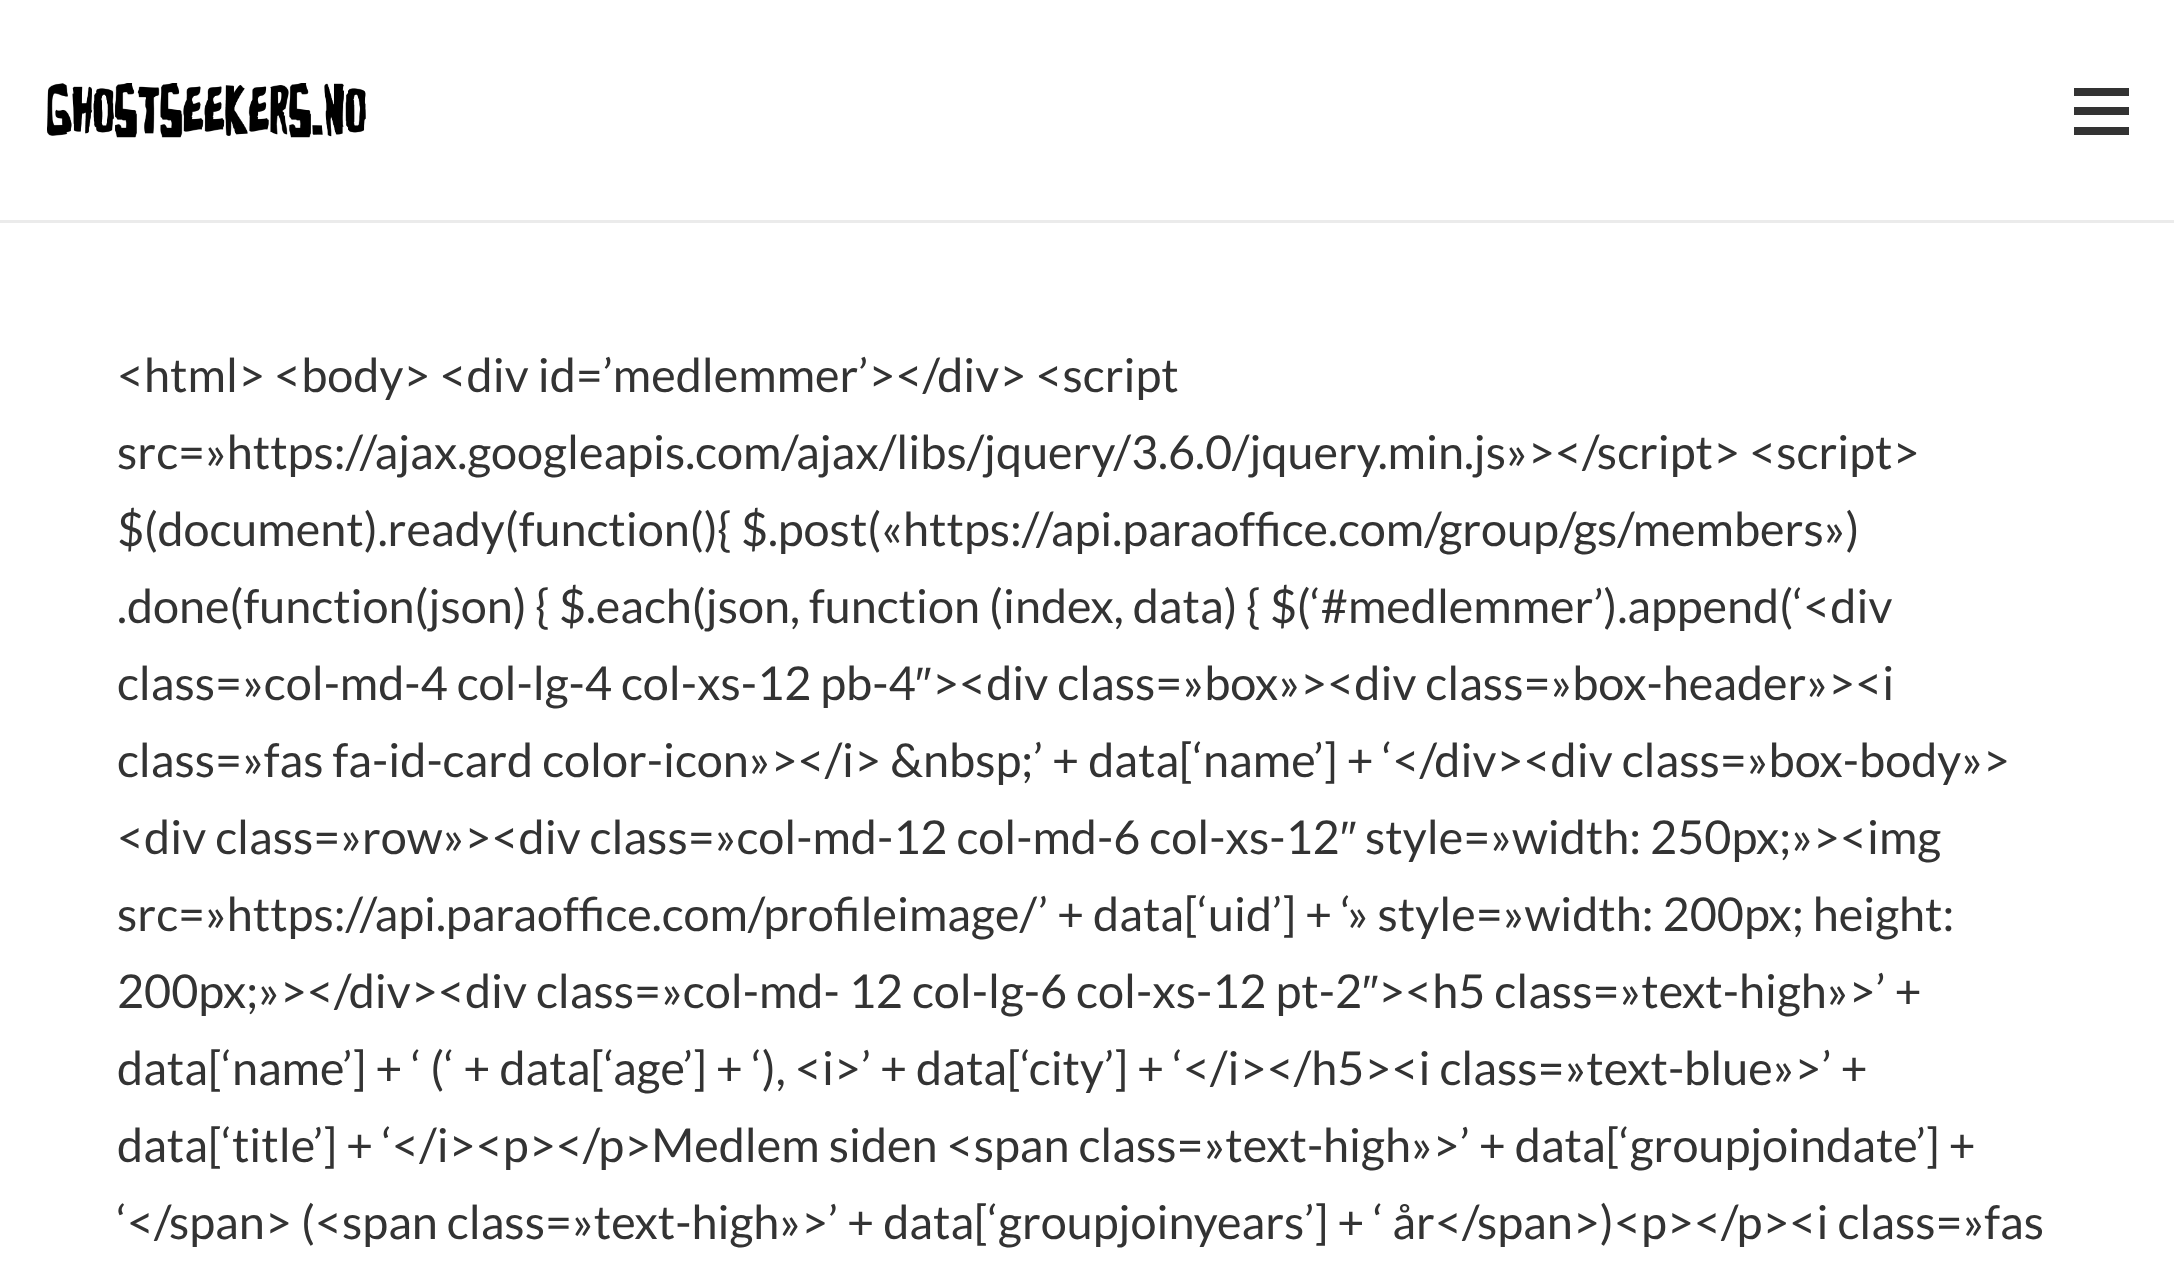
<svg xmlns="http://www.w3.org/2000/svg" width="2174" height="1273">
	<rect width="100%" height="100%" fill="#FFFFFF" />
	<rect x="0" y="220" width="2174" height="3" fill="#EBEBEB" />
	<image x="47" y="83" width="319" height="55" href="assets/img1.png" />
	<rect x="2074" y="107" width="55" height="8" fill="#333333" />
	<rect x="2074" y="88" width="55" height="8" fill="#333333" />
	<rect x="2074" y="127" width="55" height="8" fill="#333333" />
	<g font-family="Lato" font-size="46.75" fill="#333333">
		<text x="117" y="392">&lt;html&gt; &lt;body&gt; &lt;div id=’medlemmer’&gt;&lt;/div&gt; &lt;script</text>
		<text x="117" y="469">src=»https://ajax.googleapis.com/ajax/libs/jquery/3.6.0/jquery.min.js»&gt;&lt;/script&gt; &lt;script&gt;</text>
		<text x="117" y="546">$(document).ready(function(){ $.post(«https://api.paraoffice.com/group/gs/members»)</text>
		<text x="117" y="623">.done(function(json) { $.each(json, function (index, data) { $(‘#medlemmer’).append(‘&lt;div</text>
		<text x="117" y="700">class=»col-md-4 col-lg-4 col-xs-12 pb-4</text>
	</g>
	<text x="915" y="700" font-family="Liberation Sans" font-size="46.75" fill="#333333">″</text>
	<g font-family="Lato" font-size="46.75" fill="#333333">
		<text x="932" y="700">&gt;&lt;div class=»box»&gt;&lt;div class=»box-header»&gt;&lt;i</text>
		<text x="117" y="777">class=»fas fa-id-card color-icon»&gt;&lt;/i&gt; &amp;nbsp;’ + data[‘name’] + ‘&lt;/div&gt;&lt;div class=»box-body»&gt;</text>
		<text x="117" y="854">&lt;div class=»row»&gt;&lt;div class=»col-md-12 col-md-6 col-xs-12</text>
	</g>
	<text x="1340" y="854" font-family="Liberation Sans" font-size="46.75" fill="#333333">″</text>
	<g font-family="Lato" font-size="46.75" fill="#333333">
		<text x="1365" y="854">style=»width: 250px;»&gt;&lt;img</text>
		<text x="117" y="931">src=»https://api.paraoffice.com/profileimage/’ + data[‘uid’] + ‘» style=»width: 200px; height:</text>
		<text x="117" y="1008">200px;»&gt;&lt;/div&gt;&lt;div class=»col-md- 12 col-lg-6 col-xs-12 pt-2</text>
	</g>
	<text x="1362" y="1008" font-family="Liberation Sans" font-size="46.75" fill="#333333">″</text>
	<g font-family="Lato" font-size="46.75" fill="#333333">
		<text x="1378" y="1008">&gt;&lt;h5 class=»text-high»&gt;’ +</text>
		<text x="117" y="1085">data[‘name’] + ‘ (‘ + data[‘age’] + ‘), &lt;i&gt;’ + data[‘city’] + ‘&lt;/i&gt;&lt;/h5&gt;&lt;i class=»text-blue»&gt;’ +</text>
		<text x="117" y="1162">data[‘title’] + ‘&lt;/i&gt;&lt;p&gt;&lt;/p&gt;Medlem siden &lt;span class=»text-high»&gt;’ + data[‘groupjoindate’] +</text>
		<text x="117" y="1239">‘&lt;/span&gt; (&lt;span class=»text-high»&gt;’ + data[‘groupjoinyears’] + ‘ år&lt;/span&gt;)&lt;p&gt;&lt;/p&gt;&lt;i class=»fas</text>
	</g>
</svg>
